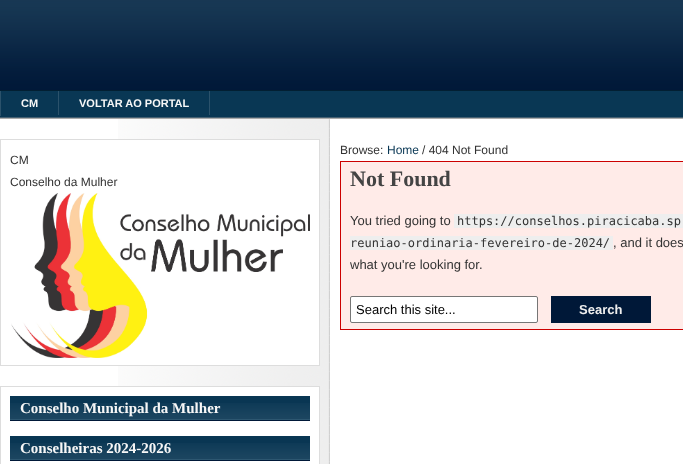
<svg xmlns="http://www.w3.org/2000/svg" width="683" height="464">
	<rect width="100%" height="100%" fill="#FFFFFF" />
	<image x="0" y="0" width="683" height="90" href="assets/img1.png" />
	<rect x="0" y="90" width="683" height="1" fill="#021F32" />
	<image x="0" y="91" width="683" height="28" href="assets/img2.png" />
	<rect x="0" y="91" width="1" height="25" fill="#2B526B" />
	<rect x="58" y="91" width="1" height="24" fill="#2B526B" />
	<text x="21" y="107" font-family="Liberation Sans" font-size="11" font-weight="700" fill="#F7F7F7">CM</text>
	<rect x="209" y="91" width="1" height="24" fill="#2B526B" />
	<text x="79" y="107" font-family="Liberation Sans" font-size="11" font-weight="700" fill="#F7F7F7">VOLTAR AO PORTAL</text>
	<image x="118" y="119" width="212" height="345" href="assets/img3.png" />
	<rect x="118" y="140" width="201" height="225" fill="#FFFFFF" />
	<rect x="0.5" y="139.5" width="319" height="226" fill="none" stroke="#DDDDDD" />
	<g font-family="Liberation Sans" font-size="12" fill="#333333">
		<text x="10" y="164">CM</text>
		<text x="10" y="186">Conselho da Mulher</text>
	</g>
	<image x="11" y="193" width="299" height="165" href="assets/img4.png" />
	<rect x="118" y="387" width="201" height="77" fill="#FFFFFF" />
	<rect x="0.5" y="386.5" width="319" height="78" fill="none" stroke="#DDDDDD" />
	<rect x="10" y="396" width="300" height="7" fill="#093653" />
	<image x="10" y="403" width="300" height="18" href="assets/img5.png" />
	<text x="20" y="413" font-family="Liberation Serif" font-size="15" font-weight="700" fill="#F7F7F7">Conselho Municipal da Mulher</text>
	<rect x="10" y="436" width="300" height="7" fill="#093653" />
	<image x="10" y="443" width="300" height="18" href="assets/img5.png" />
	<text x="20" y="453" font-family="Liberation Serif" font-size="15" font-weight="700" fill="#F7F7F7">Conselheiras 2024-2026</text>
	<text x="340" y="154" font-family="Liberation Sans" font-size="12" fill="#333333">Browse:</text>
	<text x="387" y="154" font-family="Liberation Sans" font-size="12" fill="#093754">Home</text>
	<text x="422" y="154" font-family="Liberation Sans" font-size="12" fill="#333333">/ 404 Not Found</text>
	<rect x="340.5" y="161.5" width="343" height="168" fill="#FFEBE8" stroke="#CC0000" />
	<text x="350" y="186" font-family="Liberation Serif" font-size="22" font-weight="700" fill="#444444">Not Found</text>
	<text x="350" y="225" font-family="Liberation Sans" font-size="13" fill="#333333">You tried going to</text>
	<rect x="454" y="214" width="229" height="14" fill="#EEEEEE" />
	<text x="457" y="225" font-family="DejaVu Sans Mono" font-size="12" fill="#333333">https://conselhos.piracicaba.sp</text>
	<rect x="350" y="236" width="263" height="14" fill="#EEEEEE" />
	<text x="350" y="247" font-family="DejaVu Sans Mono" font-size="12" fill="#333333">reuniao-ordinaria-fevereiro-de-2024/</text>
	<g font-family="Liberation Sans" font-size="13" fill="#333333">
		<text x="613" y="247">, and it does</text>
		<text x="350" y="269">what you're looking for.</text>
	</g>
	<rect x="350.5" y="296.5" width="187" height="26" rx="1.5" fill="#FFFFFF" stroke="#767676" />
	<text x="356" y="314" font-family="Liberation Sans" font-size="13" fill="#000000">Search this site...</text>
	<rect x="551" y="296" width="100" height="27" fill="#001838" />
	<text x="579" y="314" font-family="Liberation Sans" font-size="13" font-weight="700" fill="#EEEEEE">Search</text>
</svg>
